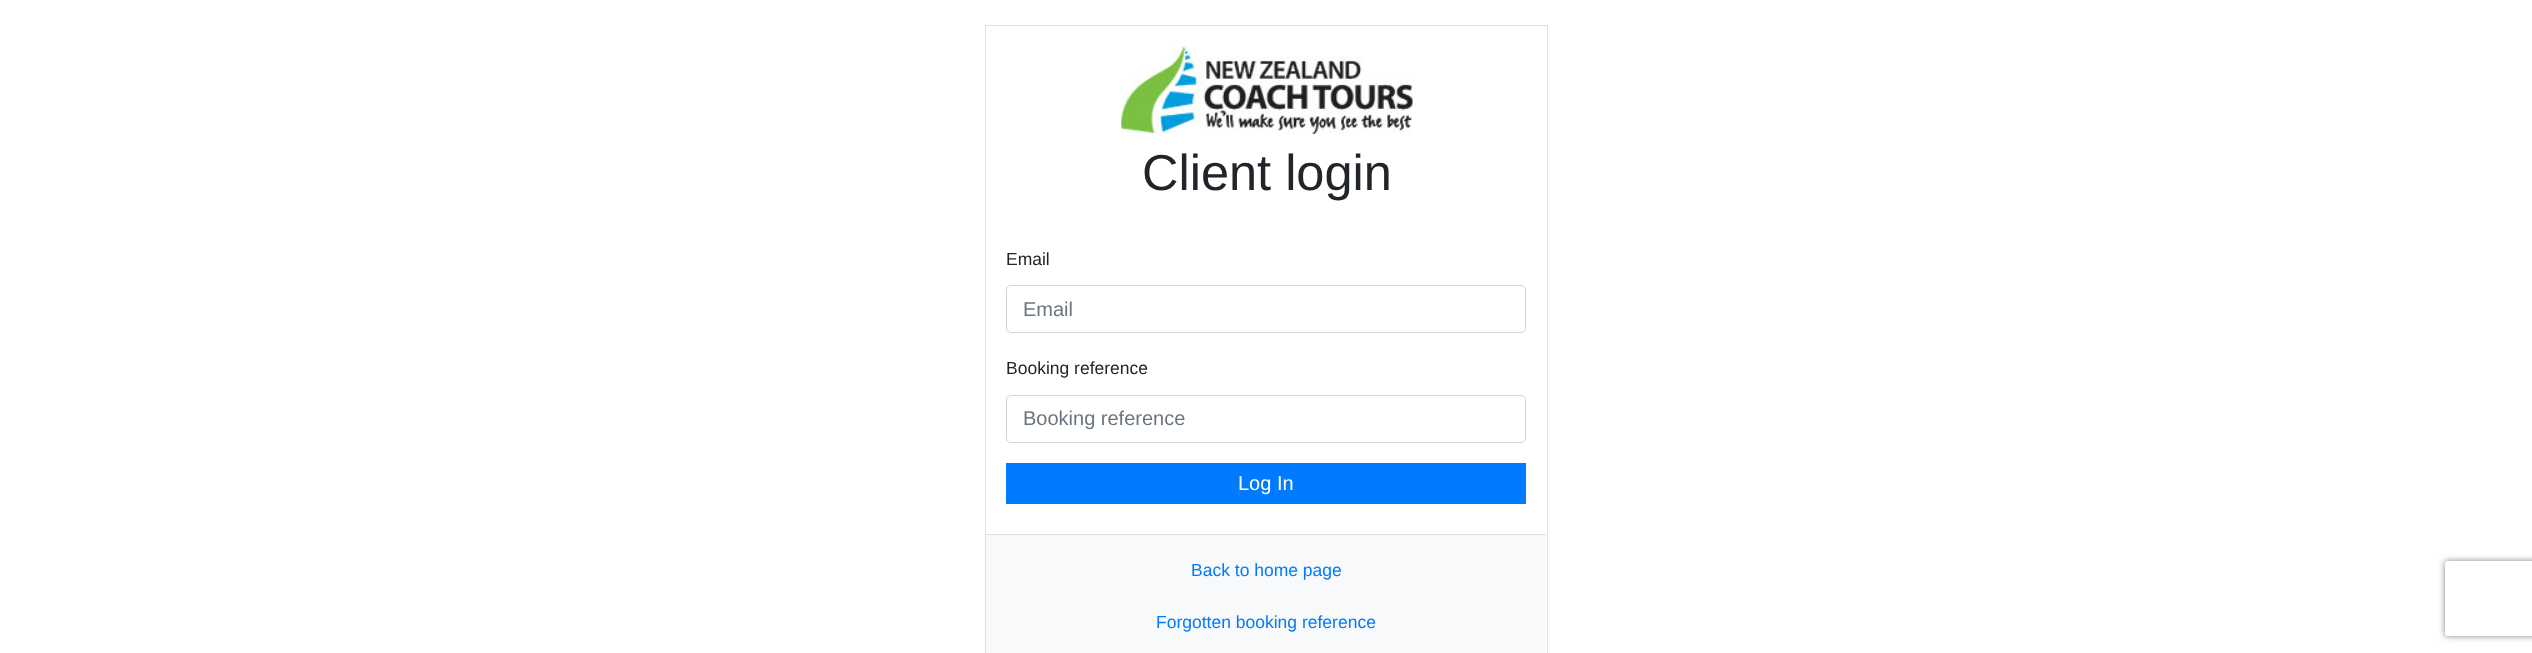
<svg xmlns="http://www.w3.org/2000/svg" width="2532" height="653">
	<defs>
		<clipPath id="clip1"><path d="M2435 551H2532V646H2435ZM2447.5 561H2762.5C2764 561 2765 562 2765 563.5V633.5C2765 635 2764 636 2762.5 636H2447.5C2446 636 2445 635 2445 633.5V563.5C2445 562 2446 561 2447.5 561Z" clip-rule="evenodd" /></clipPath>
	</defs>
	<rect width="100%" height="100%" fill="#FFFFFF" />
	<rect x="985.5" y="25.5" width="562" height="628" fill="none" stroke="#DEE2E6" />
	<image x="1121" y="46" width="292" height="88" href="assets/img1.png" />
	<text x="1142" y="190" font-family="Liberation Sans" font-size="50.5" fill="#212529">Client login</text>
	<text x="1006" y="265" font-family="Liberation Sans" font-size="17.5" fill="#212529">Email</text>
	<rect x="1006.5" y="285.5" width="519" height="47" rx="4.5" fill="none" stroke="#CED4DA" />
	<text x="1023" y="316" font-family="Liberation Sans" font-size="20" fill="#6C757D">Email</text>
	<text x="1006" y="374" font-family="Liberation Sans" font-size="17.5" fill="#212529">Booking reference</text>
	<rect x="1006.5" y="395.5" width="519" height="47" rx="4.5" fill="none" stroke="#CED4DA" />
	<text x="1023" y="425" font-family="Liberation Sans" font-size="20" fill="#6C757D">Booking reference</text>
	<rect x="1006" y="463" width="520" height="41" fill="#007BFF" />
	<text x="1238" y="490" font-family="Liberation Sans" font-size="20" fill="#FFFFFF">Log In</text>
	<g clip-path="url(#clip1)">
		<rect x="2445" y="561" width="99" height="75" rx="2.5" fill="#808080" filter="blur(3px)" />
	</g>
	<rect x="986" y="535" width="560" height="118" fill="#F8F9FA" />
	<rect x="986" y="534" width="560" height="1" fill="#DEE2E6" />
	<g font-family="Liberation Sans" font-size="17.5" fill="#007BFF">
		<text x="1191" y="576">Back to home page</text>
		<text x="1156" y="628">Forgotten booking reference</text>
	</g>
</svg>
